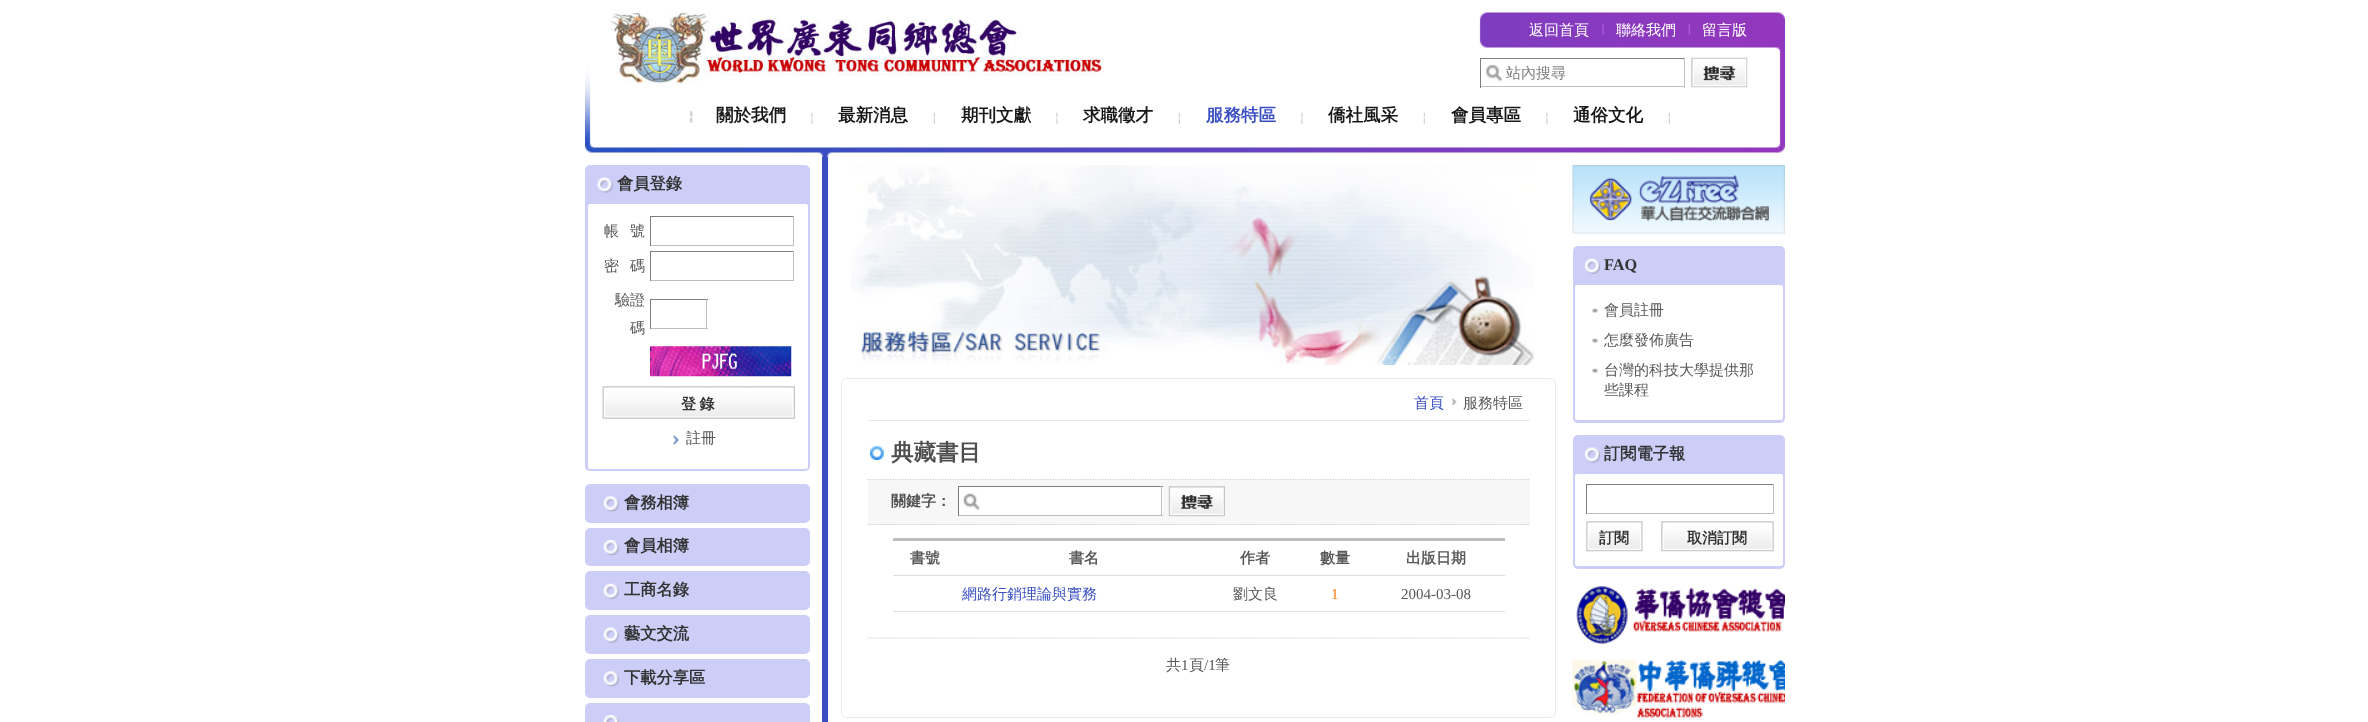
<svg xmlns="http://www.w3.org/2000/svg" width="2368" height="722">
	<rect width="100%" height="100%" fill="#FFFFFF" />
	<image x="585" y="12" width="1200" height="146" href="assets/img1.png" />
	<image x="610" y="12" width="494" height="72" href="assets/img2.png" />
	<text x="1529" y="35" font-family="WenQuanYi Zen Hei" font-size="15" font-weight="500" fill="#FFFFFF">返回首頁</text>
	<image x="1602" y="23" width="2" height="12" href="assets/img3.png" />
	<text x="1616" y="35" font-family="WenQuanYi Zen Hei" font-size="15" font-weight="500" fill="#FFFFFF">聯絡我們</text>
	<image x="1688" y="23" width="2" height="12" href="assets/img4.png" />
	<text x="1702" y="35" font-family="WenQuanYi Zen Hei" font-size="15" font-weight="500" fill="#FFFFFF">留言版</text>
	<image x="1486" y="64" width="17" height="18" href="assets/img5.png" />
	<rect x="1480" y="58" width="205" height="1" fill="#7D7D7D" />
	<rect x="1684" y="58" width="1" height="30" fill="#BFBFBF" />
	<rect x="1480" y="86" width="205" height="1" fill="#BFBFBF" />
	<rect x="1480" y="58" width="1" height="30" fill="#7D7D7D" />
	<text x="1506" y="78" font-family="WenQuanYi Zen Hei" font-size="15" font-weight="500" fill="#808080">站內搜尋</text>
	<image x="1691" y="57" width="57" height="31" href="assets/img6.png" />
	<image x="690" y="111" width="3" height="12" href="assets/img7.png" />
	<image x="811" y="112" width="2" height="12" href="assets/img8.png" />
	<text x="716" y="121" font-family="WenQuanYi Zen Hei" font-size="17.5" font-weight="700" fill="#171717">關於我們</text>
	<image x="933" y="112" width="2" height="12" href="assets/img9.png" />
	<text x="838" y="121" font-family="WenQuanYi Zen Hei" font-size="17.5" font-weight="700" fill="#171717">最新消息</text>
	<image x="1056" y="112" width="2" height="12" href="assets/img8.png" />
	<text x="961" y="121" font-family="WenQuanYi Zen Hei" font-size="17.5" font-weight="700" fill="#171717">期刊文獻</text>
	<image x="1178" y="112" width="2" height="12" href="assets/img9.png" />
	<text x="1083" y="121" font-family="WenQuanYi Zen Hei" font-size="17.5" font-weight="700" fill="#171717">求職徵才</text>
	<image x="1301" y="112" width="2" height="12" href="assets/img8.png" />
	<text x="1206" y="121" font-family="WenQuanYi Zen Hei" font-size="17.5" font-weight="700" fill="#394EC2">服務特區</text>
	<image x="1423" y="112" width="2" height="12" href="assets/img9.png" />
	<text x="1328" y="121" font-family="WenQuanYi Zen Hei" font-size="17.5" font-weight="700" fill="#171717">僑社風采</text>
	<image x="1546" y="112" width="2" height="12" href="assets/img8.png" />
	<text x="1451" y="121" font-family="WenQuanYi Zen Hei" font-size="17.5" font-weight="700" fill="#171717">會員專區</text>
	<image x="1668" y="112" width="2" height="12" href="assets/img9.png" />
	<text x="1573" y="121" font-family="WenQuanYi Zen Hei" font-size="17.5" font-weight="700" fill="#171717">通俗文化</text>
	<rect x="822" y="157" width="6" height="565" fill="#3A4EC2" />
	<rect x="585" y="165" width="225" height="306" rx="5" fill="#CCCEF8" />
	<image x="597" y="177" width="16" height="16" href="assets/img10.png" />
	<text x="617" y="189" font-family="WenQuanYi Zen Hei" font-size="16.25" font-weight="700" fill="#333333">會員登錄</text>
	<rect x="588" y="204" width="220" height="265" rx="2.5" fill="#FFFFFF" />
	<g font-family="WenQuanYi Zen Hei" font-size="15" font-weight="500" fill="#595959">
		<text x="604" y="236">帳</text>
		<text x="630" y="236">號</text>
	</g>
	<rect x="650" y="216" width="144" height="1" fill="#7D7D7D" />
	<rect x="793" y="216" width="1" height="30" fill="#BFBFBF" />
	<rect x="650" y="245" width="144" height="1" fill="#BFBFBF" />
	<rect x="650" y="216" width="1" height="30" fill="#7D7D7D" />
	<g font-family="WenQuanYi Zen Hei" font-size="15" font-weight="500" fill="#595959">
		<text x="604" y="271">密</text>
		<text x="630" y="271">碼</text>
	</g>
	<rect x="650" y="251" width="144" height="1" fill="#7D7D7D" />
	<rect x="793" y="251" width="1" height="30" fill="#BFBFBF" />
	<rect x="650" y="280" width="144" height="1" fill="#BFBFBF" />
	<rect x="650" y="251" width="1" height="30" fill="#7D7D7D" />
	<g font-family="WenQuanYi Zen Hei" font-size="15" font-weight="500" fill="#595959">
		<text x="615" y="305">驗證</text>
		<text x="630" y="333">碼</text>
	</g>
	<rect x="650" y="299" width="58" height="1" fill="#7D7D7D" />
	<rect x="706" y="299" width="1" height="30" fill="#BFBFBF" />
	<rect x="650" y="328" width="58" height="1" fill="#BFBFBF" />
	<rect x="650" y="299" width="1" height="30" fill="#7D7D7D" />
	<image x="650" y="346" width="142" height="31" href="assets/img11.png" />
	<image x="602" y="386" width="193" height="33" href="assets/img12.png" />
	<text x="681" y="409" word-spacing="-1" font-family="WenQuanYi Zen Hei" font-size="15" font-weight="700" fill="#333333">登 錄</text>
	<image x="673" y="435" width="6" height="10" href="assets/img13.png" />
	<text x="686" y="443" font-family="WenQuanYi Zen Hei" font-size="15" font-weight="500" fill="#595959">註冊</text>
	<rect x="585" y="484" width="225" height="39" rx="5" fill="#CCCEF8" />
	<image x="603" y="496" width="16" height="16" href="assets/img14.png" />
	<text x="624" y="508" font-family="WenQuanYi Zen Hei" font-size="16.25" font-weight="700" fill="#333333">會務相簿</text>
	<rect x="585" y="528" width="225" height="38" rx="5" fill="#CCCEF8" />
	<image x="603" y="540" width="16" height="15" href="assets/img15.png" />
	<text x="624" y="551" font-family="WenQuanYi Zen Hei" font-size="16.25" font-weight="700" fill="#333333">會員相簿</text>
	<rect x="585" y="571" width="225" height="39" rx="5" fill="#CCCEF8" />
	<image x="603" y="583" width="16" height="16" href="assets/img16.png" />
	<text x="624" y="595" font-family="WenQuanYi Zen Hei" font-size="16.25" font-weight="700" fill="#333333">工商名錄</text>
	<rect x="585" y="615" width="225" height="39" rx="5" fill="#CCCEF8" />
	<image x="603" y="627" width="16" height="16" href="assets/img17.png" />
	<text x="624" y="639" font-family="WenQuanYi Zen Hei" font-size="16.25" font-weight="700" fill="#333333">藝文交流</text>
	<rect x="585" y="659" width="225" height="39" rx="5" fill="#CCCEF8" />
	<image x="603" y="671" width="16" height="16" href="assets/img14.png" />
	<text x="624" y="683" font-family="WenQuanYi Zen Hei" font-size="16.25" font-weight="700" fill="#333333">下載分享區</text>
	<rect x="585" y="703" width="225" height="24" rx="5" fill="#CCCEF8" />
	<image x="603" y="715" width="16" height="7" href="assets/img18.png" />
	<image x="851" y="165" width="684" height="200" href="assets/img19.png" />
	<rect x="841.5" y="378.5" width="714" height="339" rx="4.5" fill="none" stroke="#EAEAEA" />
	<rect x="868" y="420" width="662" height="1" fill="#E8E8E8" />
	<text x="1414" y="408" font-family="WenQuanYi Zen Hei" font-size="15" font-weight="500" fill="#394EC2">首頁</text>
	<image x="1452" y="398" width="5" height="7" href="assets/img20.png" />
	<text x="1463" y="408" font-family="WenQuanYi Zen Hei" font-size="15" font-weight="500" fill="#595959">服務特區</text>
	<image x="870" y="446" width="14" height="14" href="assets/img21.png" />
	<path d="M867.5 479.5H1530" fill="none" stroke="#CDCDCD" stroke-width="1.2" stroke-dasharray="1.25 1.25" />
	<text x="891" y="460" font-family="WenQuanYi Zen Hei" font-size="22.5" font-weight="700" fill="#4E4E4E">典藏書目</text>
	<rect x="868" y="480" width="662" height="45" fill="#F7F7F7" />
	<path d="M867.5 524.5H1530" fill="none" stroke="#CDCDCD" stroke-width="1.2" stroke-dasharray="1.25 1.25" />
	<text x="891" y="506" font-family="WenQuanYi Zen Hei" font-size="15" font-weight="700" fill="#4E4E4E">關鍵字：</text>
	<rect x="959" y="487" width="204" height="28" fill="#FFFFFF" />
	<image x="963" y="493" width="17" height="18" href="assets/img22.png" />
	<rect x="958" y="486" width="205" height="1" fill="#7D7D7D" />
	<rect x="1161" y="486" width="1" height="30" fill="#BFBFBF" />
	<rect x="958" y="515" width="205" height="1" fill="#BFBFBF" />
	<rect x="958" y="486" width="1" height="30" fill="#7D7D7D" />
	<image x="1168" y="486" width="57" height="31" href="assets/img23.png" />
	<rect x="893" y="538" width="612" height="3" fill="#BEBEBE" />
	<rect x="893" y="575" width="612" height="1" fill="#DEDEDE" />
	<g font-family="WenQuanYi Zen Hei" font-size="15" font-weight="700" fill="#595959">
		<text x="910" y="563">書號</text>
		<text x="1069" y="563">書名</text>
		<text x="1240" y="563">作者</text>
		<text x="1320" y="563">數量</text>
		<text x="1406" y="563">出版日期</text>
	</g>
	<text x="962" y="599" font-family="WenQuanYi Zen Hei" font-size="15" font-weight="500" fill="#394EC2">網路行銷理論與實務</text>
	<text x="1233" y="599" font-family="WenQuanYi Zen Hei" font-size="15" font-weight="500" fill="#595959">劉文良</text>
	<text x="1331" y="599" font-family="Liberation Serif" font-size="15" fill="#FF7800">1</text>
	<text x="1401" y="599" font-family="Liberation Serif" font-size="15" fill="#595959">2004-03-08</text>
	<rect x="893" y="611" width="612" height="1" fill="#DEDEDE" />
	<path d="M867.5 638H1530" fill="none" stroke="#CDCDCD" stroke-width="1.2" stroke-dasharray="1.25 1.25" />
	<text x="1166" y="670" font-family="WenQuanYi Zen Hei" font-size="15" font-weight="500" fill="#595959">共</text>
	<text x="1181" y="670" font-family="Liberation Serif" font-size="15" fill="#595959">1</text>
	<text x="1189" y="670" font-family="WenQuanYi Zen Hei" font-size="15" font-weight="500" fill="#595959">頁</text>
	<text x="1204" y="670" font-family="Liberation Serif" font-size="15" fill="#595959">/1</text>
	<text x="1215" y="670" font-family="WenQuanYi Zen Hei" font-size="15" font-weight="500" fill="#595959">筆</text>
	<image x="1572" y="165" width="213" height="69" href="assets/img24.png" />
	<rect x="1573" y="246" width="212" height="177" rx="5" fill="#CCCEF8" />
	<image x="1585" y="258" width="15" height="16" href="assets/img25.png" />
	<text x="1604" y="270" font-family="Liberation Serif" font-size="16.25" font-weight="700" fill="#333333">FAQ</text>
	<rect x="1575" y="285" width="208" height="135" rx="2.5" fill="#FFFFFF" />
	<image x="1592" y="308" width="6" height="5" href="assets/img26.png" />
	<text x="1604" y="315" font-family="WenQuanYi Zen Hei" font-size="15" font-weight="500" fill="#595959">會員註冊</text>
	<image x="1592" y="338" width="6" height="5" href="assets/img26.png" />
	<text x="1604" y="345" font-family="WenQuanYi Zen Hei" font-size="15" font-weight="500" fill="#595959">怎麼發佈廣告</text>
	<image x="1592" y="368" width="6" height="5" href="assets/img26.png" />
	<g font-family="WenQuanYi Zen Hei" font-size="15" font-weight="500" fill="#595959">
		<text x="1604" y="375">台灣的科技大學提供那</text>
		<text x="1604" y="395">些課程</text>
	</g>
	<rect x="1573" y="435" width="212" height="134" rx="5" fill="#CCCEF8" />
	<image x="1585" y="447" width="15" height="16" href="assets/img27.png" />
	<text x="1604" y="459" font-family="WenQuanYi Zen Hei" font-size="16.25" font-weight="700" fill="#333333">訂閱電子報</text>
	<rect x="1575" y="474" width="208" height="92" rx="2.5" fill="#FFFFFF" />
	<rect x="1586" y="484" width="188" height="1" fill="#7D7D7D" />
	<rect x="1773" y="484" width="1" height="30" fill="#BFBFBF" />
	<rect x="1586" y="513" width="188" height="1" fill="#BFBFBF" />
	<rect x="1586" y="484" width="1" height="30" fill="#7D7D7D" />
	<image x="1586" y="521" width="57" height="31" href="assets/img28.png" />
	<text x="1599" y="543" font-family="WenQuanYi Zen Hei" font-size="15" font-weight="700" fill="#333333">訂閱</text>
	<image x="1661" y="521" width="113" height="31" href="assets/img29.png" />
	<text x="1687" y="543" font-family="WenQuanYi Zen Hei" font-size="15" font-weight="700" fill="#333333">取消訂閱</text>
	<image x="1576" y="586" width="209" height="58" href="assets/img30.png" />
	<image x="1572" y="659" width="213" height="59" href="assets/img31.png" />
</svg>
